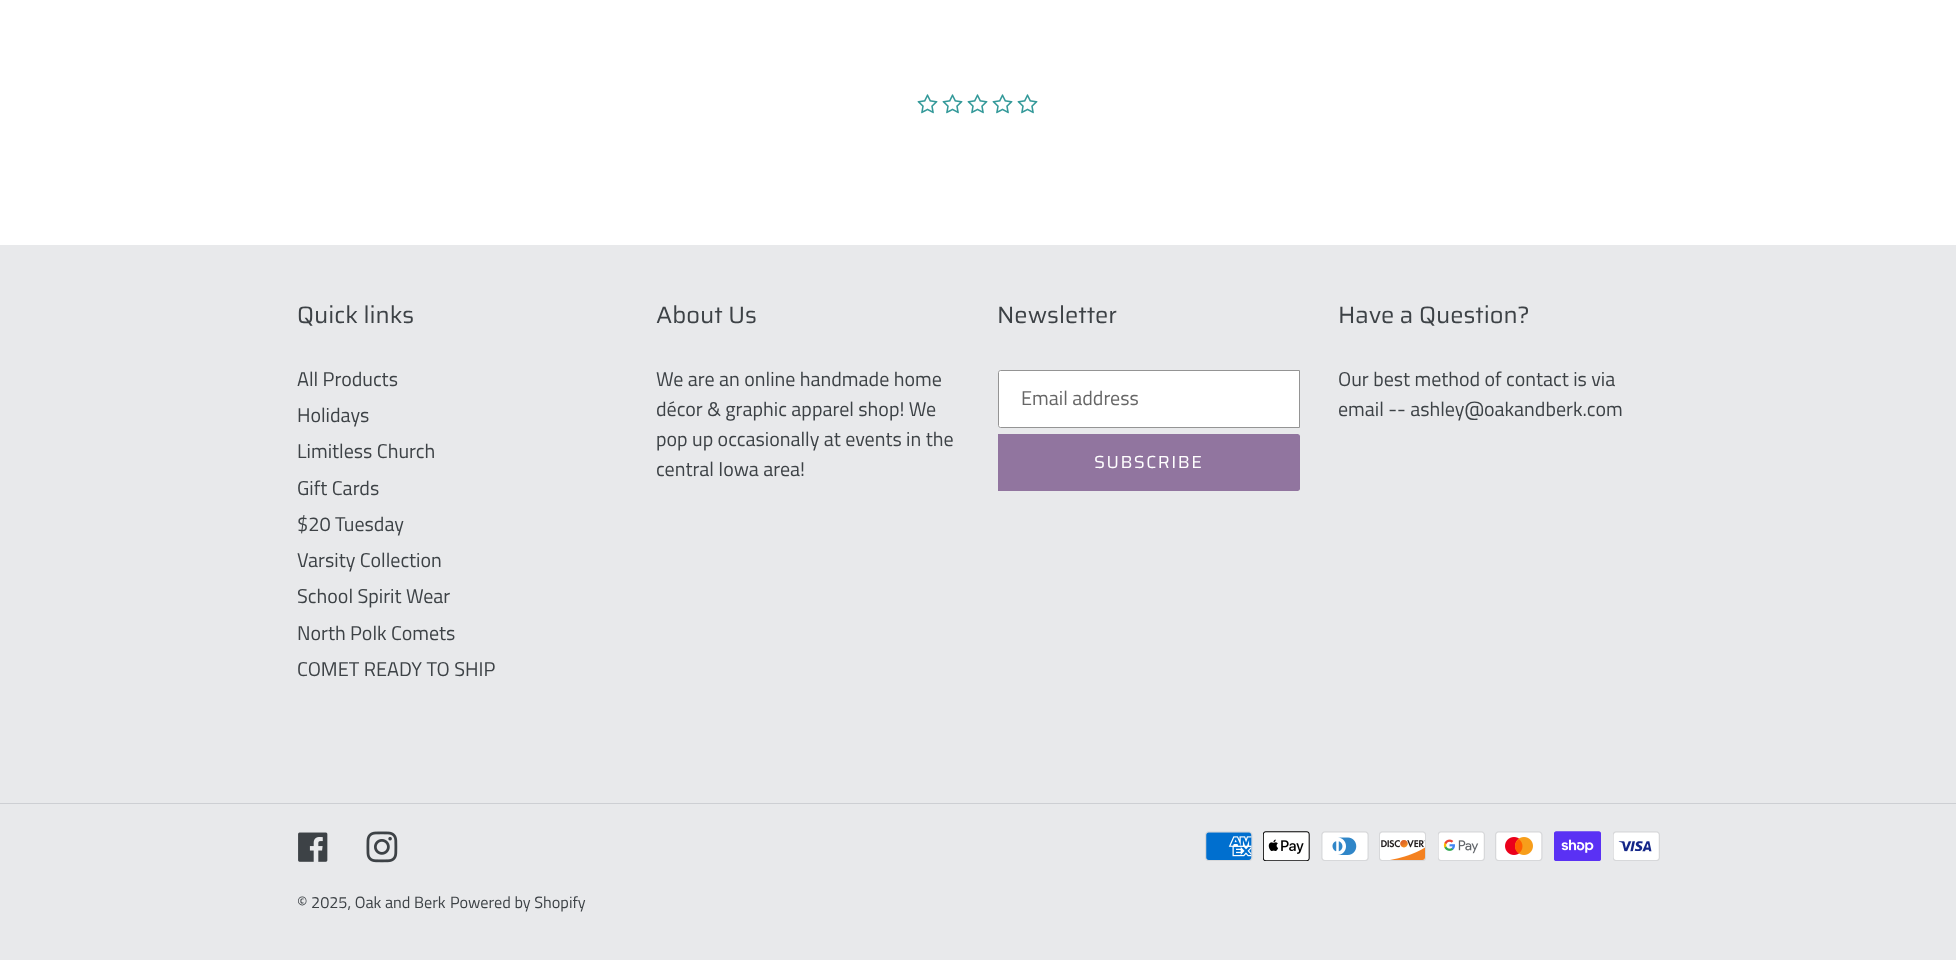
<svg xmlns="http://www.w3.org/2000/svg" width="1956" height="960">
	<rect width="100%" height="100%" fill="#FFFFFF" />
	<image x="917" y="94" width="21" height="20" href="assets/img1.png" />
	<image x="942" y="94" width="21" height="20" href="assets/img1.png" />
	<image x="967" y="94" width="21" height="20" href="assets/img1.png" />
	<image x="992" y="94" width="21" height="20" href="assets/img1.png" />
	<image x="1017" y="94" width="21" height="20" href="assets/img1.png" />
	<rect x="0" y="245" width="1956" height="715" fill="#E8E9EB" />
	<text x="297" y="323" font-family="Saira" font-size="23.75" fill="#3D4246">Quick links</text>
	<g font-family="Titillium Web" font-size="20" fill="#3D4246">
		<text x="297" y="386">All Products</text>
		<text x="297" y="422">Holidays</text>
		<text x="297" y="458">Limitless Church</text>
		<text x="297" y="495">Gift Cards</text>
		<text x="297" y="531">$20 Tuesday</text>
		<text x="297" y="567">Varsity Collection</text>
		<text x="297" y="603">School Spirit Wear</text>
		<text x="297" y="640">North Polk Comets</text>
		<text x="297" y="676">COMET READY TO SHIP</text>
	</g>
	<text x="656" y="323" font-family="Saira" font-size="23.75" fill="#3D4246">About Us</text>
	<g font-family="Titillium Web" font-size="20" fill="#3D4246">
		<text x="656" y="386">We are an online handmade home</text>
		<text x="656" y="416">décor &amp; graphic apparel shop! We</text>
		<text x="656" y="446">pop up occasionally at events in the</text>
		<text x="656" y="476">central Iowa area!</text>
	</g>
	<text x="997" y="323" font-family="Saira" font-size="23.75" fill="#3D4246">Newsletter</text>
	<path d="M1000.5 370.5H1299.5V427.5H1000.5C999.5 427.5 998.5 426.5 998.5 425.5V372.5C998.5 371.5 999.5 370.5 1000.5 370.5Z" fill="#FFFFFF" stroke="#949494" />
	<text x="1021" y="405" font-family="Titillium Web" font-size="20" fill="#666666">Email address</text>
	<path d="M998 434H1297.5C1299 434 1300 435 1300 436.5V488.5C1300 490 1299 491 1297.5 491H998Z" fill="#91759F" />
	<text x="1094" y="468" font-family="Saira" font-size="17.5" letter-spacing="1.5" fill="#FFFFFF">SUBSCRIBE</text>
	<text x="1338" y="323" font-family="Saira" font-size="23.75" fill="#3D4246">Have a Question?</text>
	<g font-family="Titillium Web" font-size="20" fill="#3D4246">
		<text x="1338" y="386">Our best method of contact is via</text>
		<text x="1338" y="416">email -- ashley@oakandberk.com</text>
	</g>
	<rect x="0" y="803" width="1956" height="1" fill="#CDCFD3" />
	<image x="298" y="832" width="30" height="30" href="assets/img2.png" />
	<image x="366" y="831" width="32" height="32" href="assets/img3.png" />
	<image x="1205" y="831" width="48" height="30" href="assets/img4.png" />
	<image x="1263" y="831" width="47" height="30" href="assets/img5.png" />
	<image x="1321" y="831" width="48" height="30" href="assets/img6.png" />
	<image x="1379" y="831" width="47" height="30" href="assets/img7.png" />
	<image x="1438" y="831" width="47" height="30" href="assets/img8.png" />
	<image x="1495" y="831" width="48" height="30" href="assets/img9.png" />
	<image x="1554" y="831" width="47" height="30" href="assets/img10.png" />
	<image x="1613" y="831" width="47" height="30" href="assets/img11.png" />
	<g font-family="Titillium Web" font-size="16.25" fill="#3D4246">
		<text x="297" y="908">© 2025, Oak and Berk</text>
		<text x="450" y="908">Powered by Shopify</text>
	</g>
</svg>
